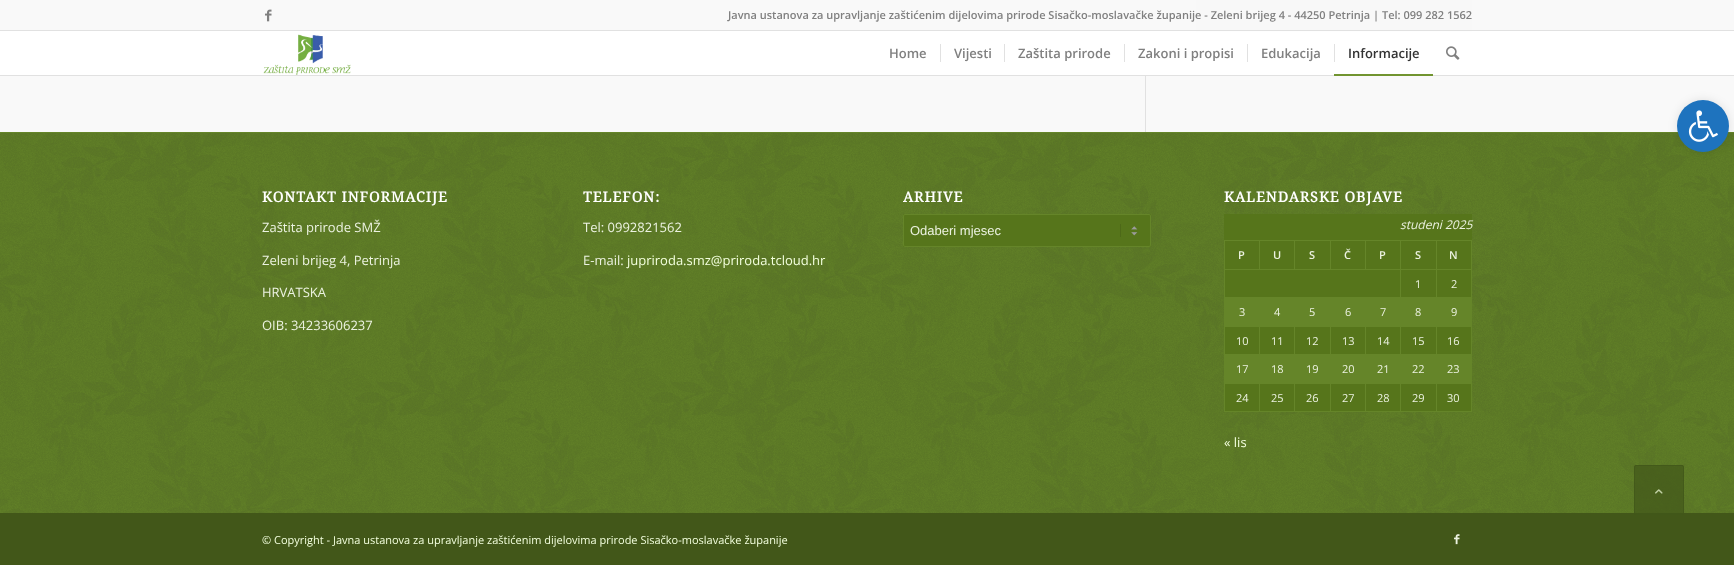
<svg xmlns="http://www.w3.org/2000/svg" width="1734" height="565">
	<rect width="100%" height="100%" fill="#F9F9F9" />
	<rect x="0" y="31" width="1734" height="44" fill="#FFFFFF" />
	<rect x="1196.5" y="-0.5" width="275" height="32" rx="1.5" fill="none" stroke="#FEFEFE" />
	<rect x="1196" y="0" width="276" height="30" fill="#F8F8F8" />
	<rect x="0" y="30" width="1734" height="1" fill="#E1E1E1" />
	<image x="265" y="9" width="7" height="13" href="assets/img1.png" />
	<text x="728" y="19" font-family="Open Sans" font-size="11" font-weight="600" fill="#808080">Javna ustanova za upravljanje zaštićenim dijelovima prirode Sisačko-moslavačke županije - Zeleni brijeg 4 - 44250 Petrinja | Tel: 099 282 1562</text>
	<rect x="1145" y="75" width="1" height="1" fill="#FEFEFE" />
	<rect x="0" y="75" width="1734" height="1" fill="#E1E1E1" />
	<image x="263" y="34" width="88" height="41" href="assets/img2.png" />
	<g font-family="Open Sans" font-size="13" font-weight="600" fill="#808080">
		<text x="889" y="58">Home</text>
		<text x="954" y="58">Vijesti</text>
	</g>
	<rect x="940" y="44" width="1" height="18" fill="#E1E1E1" />
	<text x="1018" y="58" font-family="Open Sans" font-size="13" font-weight="600" fill="#808080">Zaštita prirode</text>
	<rect x="1004" y="44" width="1" height="18" fill="#E1E1E1" />
	<text x="1138" y="58" font-family="Open Sans" font-size="13" font-weight="600" fill="#808080">Zakoni i propisi</text>
	<rect x="1124" y="44" width="1" height="18" fill="#E1E1E1" />
	<text x="1261" y="58" font-family="Open Sans" font-size="13" font-weight="600" fill="#808080">Edukacija</text>
	<rect x="1247" y="44" width="1" height="18" fill="#E1E1E1" />
	<text x="1348" y="58" font-family="Open Sans" font-size="13" font-weight="600" fill="#333333">Informacije</text>
	<rect x="1334" y="44" width="1" height="18" fill="#E1E1E1" />
	<rect x="1334" y="74" width="99" height="2" fill="#719430" />
	<image x="1446" y="46" width="14" height="14" href="assets/img3.png" />
	<rect x="1145" y="76" width="1" height="56" fill="#E1E1E1" />
	<rect x="0" y="132" width="1734" height="381" fill="#658529" />
	<image x="0" y="133" width="1734" height="380" href="assets/img4.png" />
	<text x="262" y="202" font-family="Droid Serif" font-size="14.25" font-weight="700" letter-spacing="1" fill="#FFFFFF">KONTAKT INFORMACIJE</text>
	<g font-family="Open Sans" font-size="13" fill="#ECF2E1">
		<text x="262" y="232">Zaštita prirode SMŽ</text>
		<text x="262" y="265">Zeleni brijeg 4, Petrinja</text>
		<text x="262" y="297">HRVATSKA</text>
		<text x="262" y="330">OIB: 34233606237</text>
	</g>
	<text x="583" y="202" font-family="Droid Serif" font-size="14.25" font-weight="700" letter-spacing="1" fill="#FFFFFF">TELEFON:</text>
	<g font-family="Open Sans" font-size="13" fill="#ECF2E1">
		<text x="583" y="232">Tel: 0992821562</text>
		<text x="583" y="265">E-mail:</text>
	</g>
	<text x="627" y="265" font-family="Open Sans" font-size="13" fill="#F3FFDE">jupriroda.smz@priroda.tcloud.hr</text>
	<text x="903" y="202" font-family="Droid Serif" font-size="14.25" font-weight="700" letter-spacing="1" fill="#FFFFFF">ARHIVE</text>
	<rect x="903" y="214" width="248" height="33" rx="2" fill="#56751B" />
	<image x="1120" y="224" width="18" height="13" href="assets/img5.png" />
	<rect x="903.5" y="214.5" width="247" height="32" rx="1.5" fill="none" stroke="#658529" />
	<text x="910" y="235" font-family="Liberation Sans" font-size="13" fill="#ECF2E1">Odaberi mjesec</text>
	<text x="1224" y="202" font-family="Droid Serif" font-size="14.25" font-weight="700" letter-spacing="1" fill="#FFFFFF">KALENDARSKE OBJAVE</text>
	<rect x="1224" y="214" width="248" height="197" fill="#56751B" />
	<text x="1400" y="229" font-family="Open Sans" font-size="12" font-style="italic" fill="#ECF2E1">studeni 2025</text>
	<rect x="1224" y="240" width="248" height="1" fill="#658529" />
	<rect x="1224" y="269" width="248" height="1" fill="#658529" />
	<rect x="1259" y="240" width="1" height="30" fill="#658529" />
	<rect x="1471" y="297" width="1" height="115" fill="#658529" />
	<rect x="1471" y="269" width="1" height="29" fill="#658529" />
	<rect x="1436" y="297" width="1" height="1" fill="#658529" />
	<rect x="1436" y="297" width="36" height="1" fill="#658529" />
	<rect x="1436" y="269" width="1" height="29" fill="#658529" />
	<rect x="1400" y="297" width="1" height="1" fill="#658529" />
	<rect x="1400" y="297" width="37" height="1" fill="#658529" />
	<rect x="1400" y="269" width="1" height="29" fill="#658529" />
	<rect x="1259" y="297" width="1" height="1" fill="#658529" />
	<rect x="1436" y="354" width="36" height="1" fill="#658529" />
	<rect x="1436" y="326" width="1" height="29" fill="#658529" />
	<rect x="1400" y="354" width="1" height="1" fill="#658529" />
	<rect x="1400" y="354" width="37" height="1" fill="#658529" />
	<rect x="1400" y="326" width="1" height="29" fill="#658529" />
	<rect x="1365" y="354" width="1" height="1" fill="#658529" />
	<rect x="1365" y="354" width="36" height="1" fill="#658529" />
	<rect x="1365" y="326" width="1" height="29" fill="#658529" />
	<rect x="1330" y="354" width="1" height="1" fill="#658529" />
	<rect x="1330" y="354" width="36" height="1" fill="#658529" />
	<rect x="1330" y="326" width="1" height="29" fill="#658529" />
	<rect x="1294" y="354" width="1" height="1" fill="#658529" />
	<rect x="1294" y="354" width="37" height="1" fill="#658529" />
	<rect x="1294" y="326" width="1" height="29" fill="#658529" />
	<rect x="1259" y="354" width="1" height="1" fill="#658529" />
	<rect x="1259" y="354" width="36" height="1" fill="#658529" />
	<rect x="1259" y="326" width="1" height="29" fill="#658529" />
	<rect x="1436" y="411" width="36" height="1" fill="#658529" />
	<rect x="1436" y="383" width="1" height="29" fill="#658529" />
	<rect x="1400" y="411" width="37" height="1" fill="#658529" />
	<rect x="1400" y="383" width="1" height="29" fill="#658529" />
	<rect x="1365" y="411" width="36" height="1" fill="#658529" />
	<rect x="1365" y="383" width="1" height="29" fill="#658529" />
	<rect x="1330" y="411" width="36" height="1" fill="#658529" />
	<rect x="1330" y="383" width="1" height="29" fill="#658529" />
	<rect x="1294" y="411" width="37" height="1" fill="#658529" />
	<rect x="1294" y="383" width="1" height="29" fill="#658529" />
	<rect x="1259" y="411" width="36" height="1" fill="#658529" />
	<rect x="1259" y="383" width="1" height="29" fill="#658529" />
	<rect x="1224" y="411" width="36" height="1" fill="#658529" />
	<rect x="1224" y="383" width="1" height="29" fill="#658529" />
	<rect x="1224" y="383" width="248" height="1" fill="#658529" />
	<rect x="1224" y="354" width="1" height="30" fill="#658529" />
	<rect x="1224" y="354" width="36" height="1" fill="#658529" />
	<rect x="1224" y="326" width="1" height="29" fill="#658529" />
	<rect x="1224" y="326" width="248" height="1" fill="#658529" />
	<rect x="1224" y="297" width="1" height="30" fill="#658529" />
	<rect x="1294" y="297" width="1" height="1" fill="#658529" />
	<rect x="1330" y="297" width="1" height="1" fill="#658529" />
	<rect x="1365" y="297" width="1" height="1" fill="#658529" />
	<rect x="1224" y="297" width="177" height="1" fill="#658529" />
	<rect x="1224" y="269" width="1" height="29" fill="#658529" />
	<rect x="1224" y="240" width="1" height="30" fill="#658529" />
	<text x="1238" y="259" font-family="Open Sans" font-size="11" font-weight="600" letter-spacing="2" fill="#ECF2E1">P</text>
	<rect x="1294" y="240" width="1" height="30" fill="#658529" />
	<text x="1273" y="259" font-family="Open Sans" font-size="11" font-weight="600" letter-spacing="2" fill="#ECF2E1">U</text>
	<rect x="1330" y="240" width="1" height="30" fill="#658529" />
	<text x="1309" y="259" font-family="Open Sans" font-size="11" font-weight="600" letter-spacing="2" fill="#ECF2E1">S</text>
	<rect x="1365" y="240" width="1" height="30" fill="#658529" />
	<text x="1344" y="259" font-family="Open Sans" font-size="11" font-weight="600" letter-spacing="2" fill="#ECF2E1">Č</text>
	<rect x="1400" y="240" width="1" height="30" fill="#658529" />
	<text x="1379" y="259" font-family="Open Sans" font-size="11" font-weight="600" letter-spacing="2" fill="#ECF2E1">P</text>
	<rect x="1436" y="240" width="1" height="30" fill="#658529" />
	<text x="1415" y="259" font-family="Open Sans" font-size="11" font-weight="600" letter-spacing="2" fill="#ECF2E1">S</text>
	<rect x="1471" y="240" width="1" height="30" fill="#658529" />
	<text x="1449" y="259" font-family="Open Sans" font-size="11" font-weight="600" letter-spacing="2" fill="#ECF2E1">N</text>
	<g font-family="Open Sans" font-size="11" fill="#ECF2E1">
		<text x="1415" y="288">1</text>
		<text x="1451" y="288">2</text>
	</g>
	<rect x="1225" y="298" width="246" height="28" fill="#658529" />
	<g font-family="Open Sans" font-size="11" fill="#ECF2E1">
		<text x="1239" y="316">3</text>
		<text x="1274" y="316">4</text>
		<text x="1309" y="316">5</text>
		<text x="1345" y="316">6</text>
		<text x="1380" y="316">7</text>
		<text x="1415" y="316">8</text>
		<text x="1451" y="316">9</text>
		<text x="1236" y="345">10</text>
		<text x="1271" y="345">11</text>
		<text x="1306" y="345">12</text>
		<text x="1342" y="345">13</text>
		<text x="1377" y="345">14</text>
		<text x="1412" y="345">15</text>
		<text x="1447" y="345">16</text>
	</g>
	<rect x="1225" y="355" width="246" height="28" fill="#658529" />
	<g font-family="Open Sans" font-size="11" fill="#ECF2E1">
		<text x="1236" y="373">17</text>
		<text x="1271" y="373">18</text>
		<text x="1306" y="373">19</text>
		<text x="1342" y="373">20</text>
		<text x="1377" y="373">21</text>
		<text x="1412" y="373">22</text>
		<text x="1447" y="373">23</text>
		<text x="1236" y="402">24</text>
		<text x="1271" y="402">25</text>
		<text x="1306" y="402">26</text>
		<text x="1342" y="402">27</text>
		<text x="1377" y="402">28</text>
		<text x="1412" y="402">29</text>
		<text x="1447" y="402">30</text>
	</g>
	<text x="1224" y="447" font-family="Open Sans" font-size="13" fill="#F3FFDE">« lis</text>
	<rect x="0" y="513" width="1734" height="52" fill="#425719" />
	<text x="262" y="544" font-family="Open Sans" font-size="11" fill="#F3FFDE">© Copyright - Javna ustanova za upravljanje zaštićenim dijelovima prirode Sisačko-moslavačke županije</text>
	<image x="1454" y="534" width="6" height="11" href="assets/img6.png" />
	<rect x="1677" y="100" width="52" height="52" rx="26" fill="#000000" fill-opacity="0.1" filter="blur(5px)" />
	<circle cx="1703" cy="126" r="26" fill="#1E73BE" />
	<image x="1688" y="110" width="30" height="32" href="assets/img7.png" />
	<rect x="1634" y="465" width="50" height="50" rx="2" fill="#425719" fill-opacity="0.7" />
	<rect x="1634.5" y="465.5" width="49" height="49" rx="1.5" fill="none" stroke="#425719" stroke-opacity="0.7" />
	<image x="1655" y="489" width="8" height="5" href="assets/img8.png" />
</svg>
